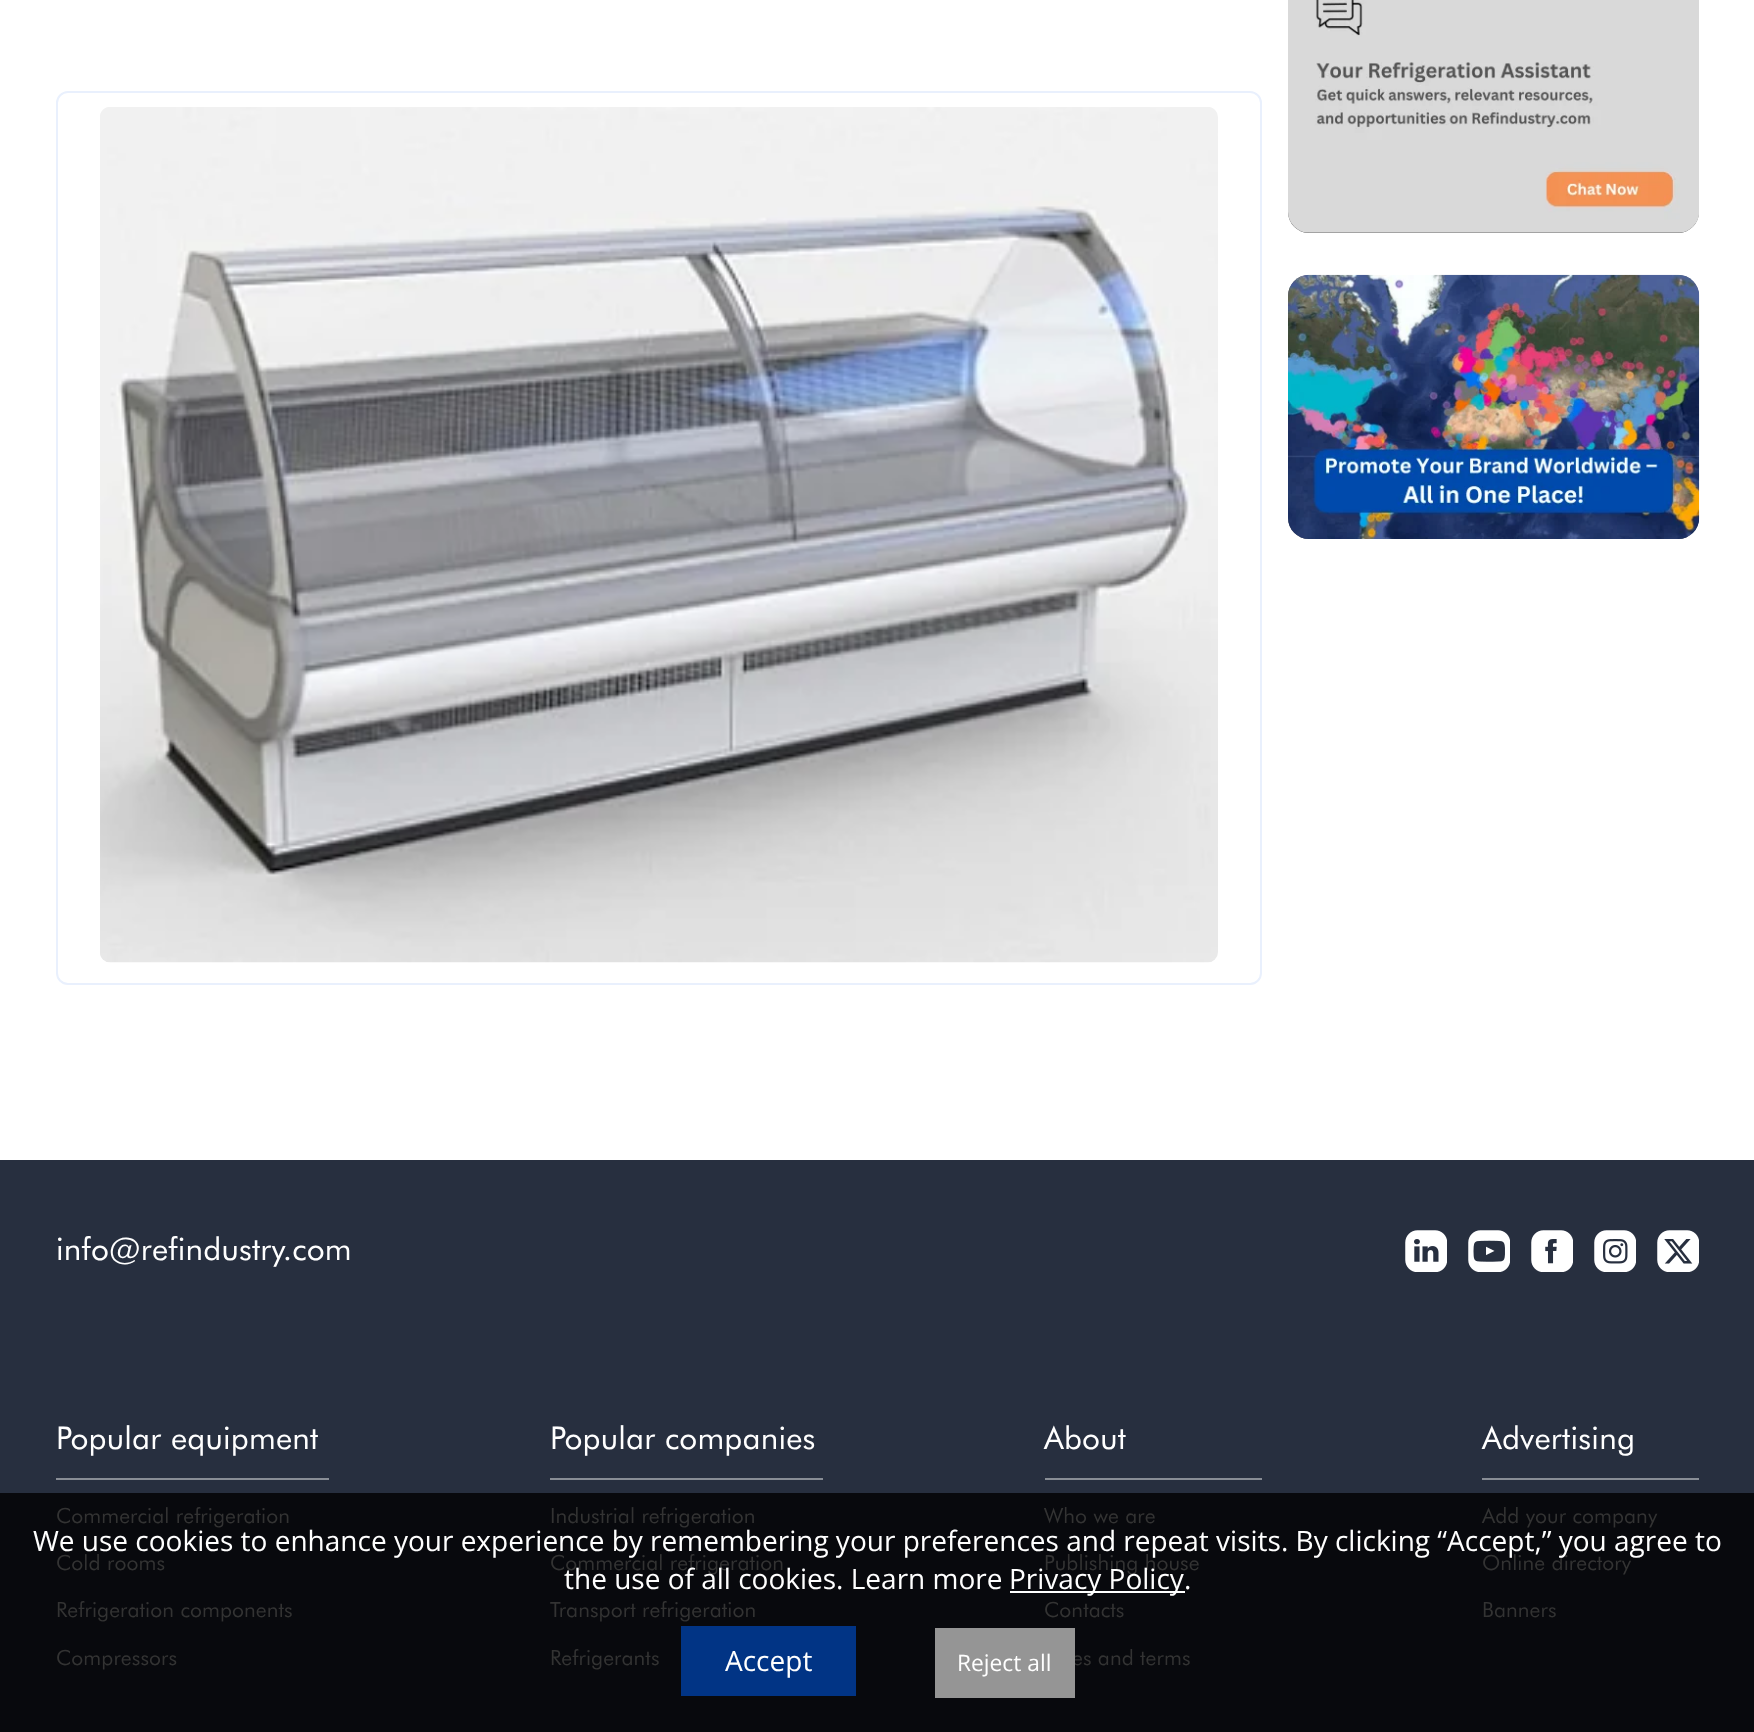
<svg xmlns="http://www.w3.org/2000/svg" width="1754" height="1732">
	<rect width="100%" height="100%" fill="#FFFFFF" />
	<rect x="57" y="92" width="1204" height="892" rx="11" fill="none" stroke="#E9F0FD" stroke-width="2" />
	<image x="100" y="107" width="1118" height="856" href="assets/img1.png" />
	<rect x="1288" y="-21" width="411" height="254" rx="21" fill="#5D5D5D" />
	<image x="1288" y="0" width="411" height="233" href="assets/img2.png" />
	<rect x="1288" y="275" width="411" height="264" rx="21" fill="#5D5D5D" />
	<image x="1288" y="274" width="412" height="265" href="assets/img3.png" />
	<rect x="0" y="1160" width="1754" height="333" fill="#272F3F" />
	<rect x="0" y="1493" width="1754" height="239" fill="#08090D" />
	<text x="56" y="1260" font-family="Futura" font-size="31.5" letter-spacing="0.2" fill="#FFFFFF">info@refindustry.com</text>
	<image x="1405" y="1230" width="42" height="42" href="assets/img4.png" />
	<image x="1468" y="1230" width="42" height="42" href="assets/img5.png" />
	<image x="1531" y="1230" width="42" height="42" href="assets/img6.png" />
	<image x="1594" y="1230" width="42" height="42" href="assets/img7.png" />
	<image x="1657" y="1230" width="42" height="42" href="assets/img8.png" />
	<text x="56" y="1449" font-family="Futura" font-size="31.5" letter-spacing="0.2" fill="#FFFFFF">Popular equipment</text>
	<rect x="56" y="1478" width="273" height="2" fill="#888D95" />
	<g font-family="Futura" font-size="21" letter-spacing="0.1" fill="#333333">
		<text x="56" y="1523">Commercial refrigeration</text>
		<text x="56" y="1570">Cold rooms</text>
		<text x="56" y="1617">Refrigeration components</text>
		<text x="56" y="1665">Compressors</text>
	</g>
	<text x="550" y="1449" font-family="Futura" font-size="31.5" letter-spacing="0.2" fill="#FFFFFF">Popular companies</text>
	<rect x="550" y="1478" width="273" height="2" fill="#888D95" />
	<g font-family="Futura" font-size="21" letter-spacing="0.1" fill="#333333">
		<text x="550" y="1523">Industrial refrigeration</text>
		<text x="550" y="1570">Commercial refrigeration</text>
		<text x="550" y="1617">Transport refrigeration</text>
		<text x="550" y="1665">Refrigerants</text>
	</g>
	<text x="1044" y="1449" font-family="Futura" font-size="31.5" letter-spacing="0.2" fill="#FFFFFF">About</text>
	<rect x="1045" y="1478" width="217" height="2" fill="#888D95" />
	<g font-family="Futura" font-size="21" letter-spacing="0.1" fill="#333333">
		<text x="1044" y="1523">Who we are</text>
		<text x="1044" y="1570">Publishing house</text>
		<text x="1044" y="1617">Contacts</text>
		<text x="1072" y="1665">es and terms</text>
	</g>
	<text x="1482" y="1449" font-family="Futura" font-size="31.5" letter-spacing="0.2" fill="#FFFFFF">Advertising</text>
	<rect x="1482" y="1478" width="217" height="2" fill="#888D95" />
	<g font-family="Futura" font-size="21" letter-spacing="0.1" fill="#333333">
		<text x="1482" y="1523">Add your company</text>
		<text x="1482" y="1570">Online directory</text>
		<text x="1482" y="1617">Banners</text>
	</g>
	<g font-family="Open Sans" font-size="28" fill="#FFFFFF">
		<text x="33" y="1551">We use cookies to enhance your experience by remembering your preferences and repeat visits. By clicking “Accept,” you agree to</text>
		<text x="564" y="1589">the use of all cookies. Learn more</text>
	</g>
	<rect x="1010" y="1591" width="175" height="2" fill="#FFFFFF" />
	<text x="1009" y="1589" font-family="Open Sans" font-size="28" fill="#FFFFFF">Privacy Policy.</text>
	<rect x="681" y="1626" width="175" height="70" fill="#013485" />
	<text x="725" y="1671" font-family="Open Sans" font-size="28" fill="#FFFFFF">Accept</text>
	<rect x="935" y="1628" width="140" height="70" fill="#959595" />
	<text x="957" y="1671" font-family="Open Sans" font-size="22.75" fill="#FFFFFF">Reject all</text>
</svg>
